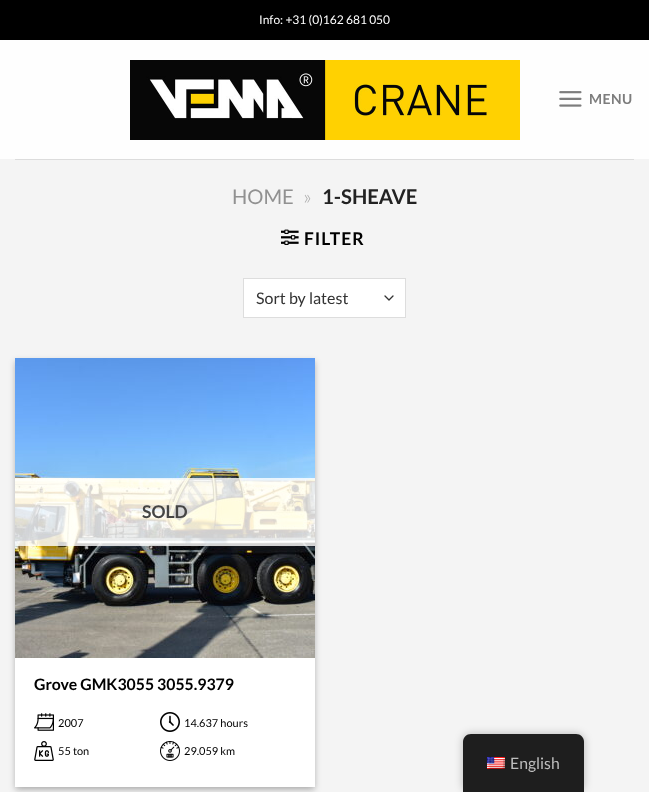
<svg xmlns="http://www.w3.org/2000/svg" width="649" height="792">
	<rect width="100%" height="100%" fill="#F4F4F4" />
	<rect x="0" y="0" width="649" height="40" fill="#000000" />
	<text x="259" y="24" font-family="Lato" font-size="12" fill="#FFFFFF">Info: +31 (0)162 681 050</text>
	<rect x="0" y="40" width="649" height="119" fill="#FEFEFE" />
	<image x="130" y="60" width="390" height="80" href="assets/img1.png" />
	<image x="559" y="91" width="23" height="16" href="assets/img2.png" />
	<text x="589" y="104" font-family="Lato" font-size="14" font-weight="700" letter-spacing="0.5" fill="#7D7D7D">MENU</text>
	<rect x="15" y="159" width="619" height="1" fill="#DCDCDC" />
	<text x="232" y="204" font-family="Lato" font-size="20.25" fill="#919191">HOME</text>
	<text x="303" y="204" font-family="Lato" font-size="20.25" font-weight="300" fill="#AAAAAA">»</text>
	<text x="322" y="204" font-family="Lato" font-size="20.25" font-weight="700" fill="#222222">1-SHEAVE</text>
	<image x="281" y="229" width="18" height="16" href="assets/img3.png" />
	<text x="304" y="245" font-family="Lato" font-size="17.5" font-weight="700" letter-spacing="1" fill="#000000">FILTER</text>
	<rect x="244" y="279" width="161" height="38" fill="#FFFFFF" />
	<path d="M385 296L389 300L393 296" fill="none" stroke="#333333" stroke-width="1.3" stroke-linecap="round" stroke-linejoin="round" />
	<rect x="243.5" y="278.5" width="162" height="39" fill="none" stroke="#DDDDDD" />
	<text x="256" y="304" font-family="Lato" font-size="16" fill="#333333">Sort by latest</text>
	<rect x="15" y="361" width="300" height="429" fill="#000000" fill-opacity="0.23" filter="blur(3px)" />
	<rect x="19" y="365" width="292" height="421" fill="#000000" fill-opacity="0.16" filter="blur(3px)" />
	<rect x="15" y="658" width="300" height="129" fill="#FFFFFF" />
	<image x="15" y="358" width="300" height="300" href="assets/img4.png" />
	<rect x="15" y="478" width="300" height="68" fill="#FFFFFF" fill-opacity="0.81" />
	<text x="142" y="518" font-family="Lato" font-size="17.5" font-weight="700" fill="#454544">SOLD</text>
	<text x="34" y="690" font-family="Lato" font-size="15.8" font-weight="700" fill="#000000">Grove GMK3055 3055.9379</text>
	<image x="34" y="713" width="20" height="18" href="assets/img5.png" />
	<text x="58" y="727" font-family="Lato" font-size="11" fill="#000000">2007</text>
	<image x="160" y="712" width="20" height="20" href="assets/img6.png" />
	<text x="184" y="727" font-family="Lato" font-size="11" fill="#000000">14.637 hours</text>
	<image x="34" y="741" width="20" height="20" href="assets/img7.png" />
	<text x="58" y="755" font-family="Lato" font-size="11" fill="#000000">55 ton</text>
	<image x="160" y="741" width="20" height="20" href="assets/img8.png" />
	<text x="184" y="755" font-family="Lato" font-size="11" fill="#000000">29.059 km</text>
	<rect x="463" y="734" width="121" height="58" rx="8" fill="#000000" fill-opacity="0.25" filter="blur(4px)" />
	<path d="M471 734H576C580.5 734 584 737.5 584 742V792H463V742C463 737.5 466.5 734 471 734Z" fill="#1E1E1E" />
	<image x="487" y="757" width="18" height="12" href="assets/img9.png" />
	<text x="510" y="769" font-family="Lato" font-size="15.8" fill="#BDBDBD">English</text>
</svg>
